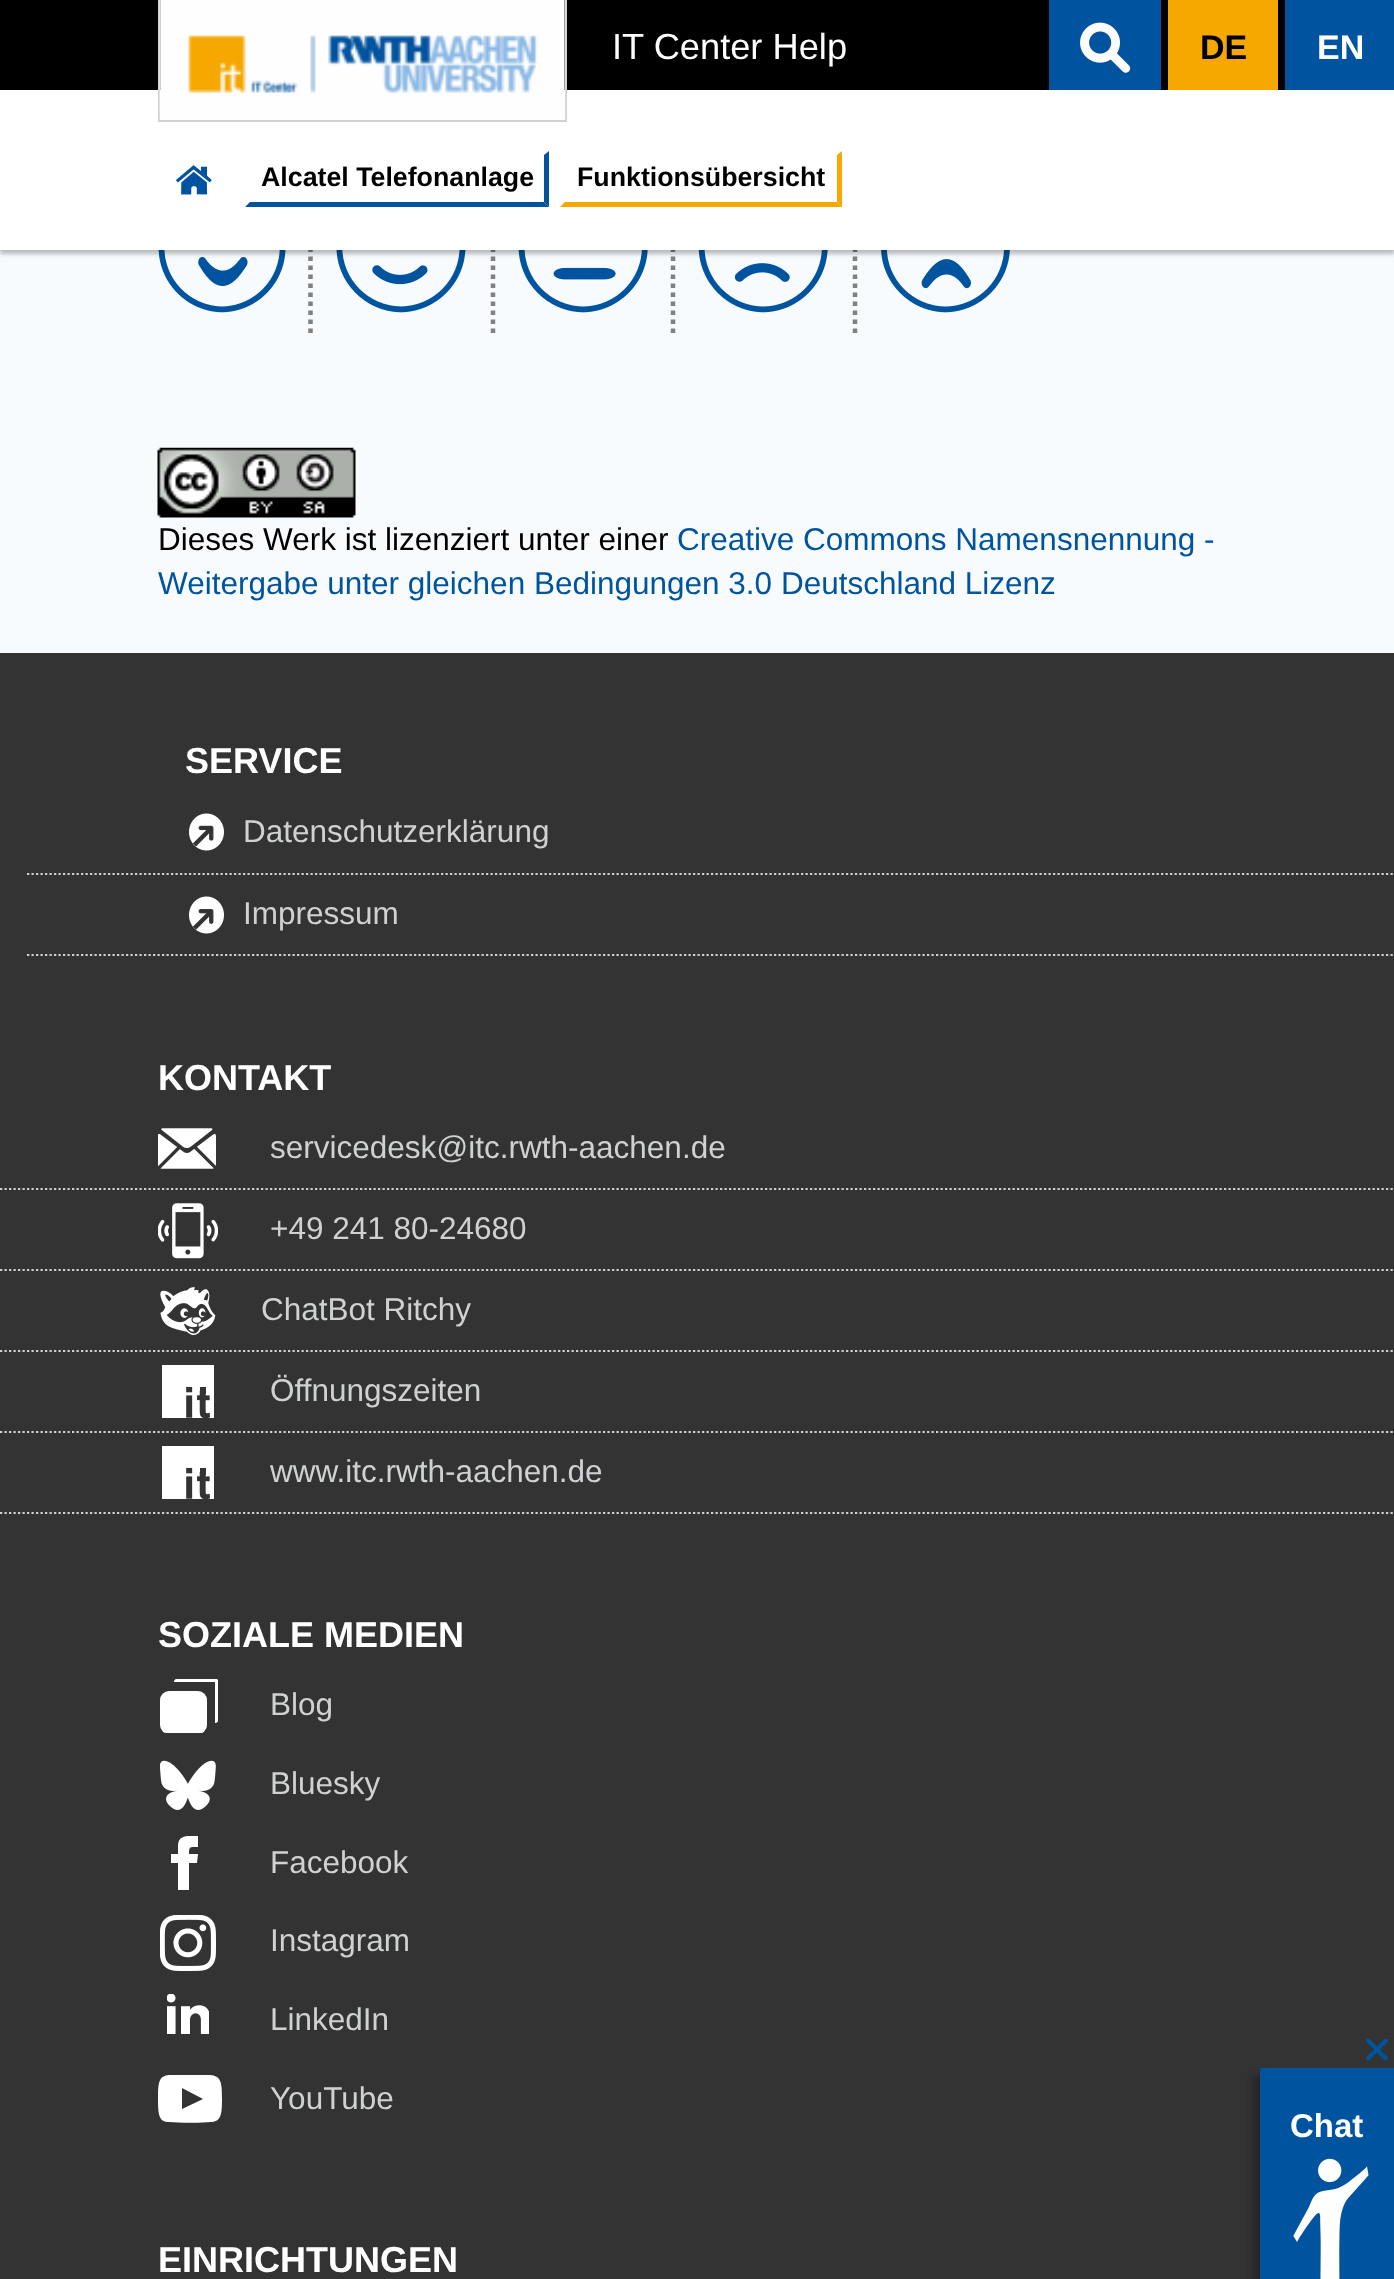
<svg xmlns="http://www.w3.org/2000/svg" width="1394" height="2279">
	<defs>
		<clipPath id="clip1"><rect x="160" y="1679" width="58" height="54" /></clipPath>
		<clipPath id="clip2"><rect x="171" y="1836" width="27" height="54" /></clipPath>
		<clipPath id="clip3"><rect x="158" y="2075" width="65" height="49" /></clipPath>
	</defs>
	<rect width="100%" height="100%" fill="#F8FBFD" />
	<image x="158" y="250" width="128" height="63" href="assets/img4.png" />
	<path d="M310.5 157.5V335" fill="none" stroke="#808080" stroke-width="4.5" stroke-dasharray="4.5 4.5" />
	<image x="336" y="250" width="130" height="63" href="assets/img5.png" />
	<path d="M493 157.5V335" fill="none" stroke="#808080" stroke-width="4.5" stroke-dasharray="4.5 4.5" />
	<image x="518" y="250" width="130" height="63" href="assets/img6.png" />
	<path d="M673 157.5V335" fill="none" stroke="#808080" stroke-width="4.5" stroke-dasharray="4.5 4.5" />
	<image x="698" y="250" width="130" height="63" href="assets/img7.png" />
	<path d="M855 157.5V335" fill="none" stroke="#808080" stroke-width="4.5" stroke-dasharray="4.5 4.5" />
	<image x="881" y="250" width="129" height="63" href="assets/img8.png" />
	<rect x="0" y="95" width="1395" height="159" fill="#000000" fill-opacity="0.26" filter="blur(2px)" />
	<rect x="0" y="0" width="1285" height="90" fill="#000000" />
	<rect x="0" y="90" width="1394" height="160" fill="#FFFFFF" />
	<rect x="159" y="-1" width="407" height="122" fill="none" stroke="#CFD1D2" stroke-width="2" />
	<image x="159" y="0" width="407" height="120" href="assets/img1.png" />
	<text x="612" y="59" font-family="Liberation Sans" font-size="36.25" fill="#FFFFFF">IT Center Help</text>
	<rect x="1049" y="0" width="112" height="90" fill="#00549F" />
	<image x="1080" y="22" width="51" height="51" href="assets/img2.png" />
	<rect x="1168" y="0" width="110" height="90" fill="#F7A800" />
	<text x="1200" y="59" font-family="Liberation Sans" font-size="34" font-weight="700" fill="#000000">DE</text>
	<rect x="1285" y="0" width="109" height="90" fill="#00549F" />
	<text x="1317" y="59" font-family="Liberation Sans" font-size="34" font-weight="700" fill="#FFFFFF">EN</text>
	<image x="175" y="165" width="37" height="30" href="assets/img3.png" />
	<path d="M549 151V207L544 202V155Z" fill="#00549F" />
	<path d="M549 207H245L250 202H544Z" fill="#00549F" />
	<text x="261" y="186" font-family="Liberation Sans" font-size="26.75" font-weight="700" fill="#000000">Alcatel Telefonanlage</text>
	<path d="M842 151V207L837 202V155Z" fill="#F7A800" />
	<path d="M842 207H560L565 202H837Z" fill="#F7A800" />
	<text x="577" y="186" font-family="Liberation Sans" font-size="26.75" font-weight="700" fill="#000000">Funktionsübersicht</text>
	<image x="157" y="447" width="199" height="71" href="assets/img9.png" />
	<text x="158" y="550" font-family="Liberation Sans" font-size="31.5" fill="#000000">Dieses Werk ist lizenziert unter einer</text>
	<g font-family="Liberation Sans" font-size="31.5" fill="#00549F">
		<text x="677" y="550">Creative Commons Namensnennung -</text>
		<text x="158" y="594">Weitergabe unter gleichen Bedingungen 3.0 Deutschland Lizenz</text>
	</g>
	<rect x="0" y="653" width="1394" height="1626" fill="#333333" />
	<text x="185" y="773" font-family="Liberation Sans" font-size="36" font-weight="700" fill="#FFFFFF">SERVICE</text>
	<image x="189" y="813" width="35" height="38" href="assets/img10.png" />
	<text x="243" y="842" font-family="Liberation Sans" font-size="31.5" fill="#CFD1D2">Datenschutzerklärung</text>
	<path d="M27 874H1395" fill="none" stroke="#CFD1D2" stroke-width="2.2" stroke-dasharray="2.25 2.25" />
	<image x="189" y="896" width="35" height="38" href="assets/img11.png" />
	<text x="243" y="924" font-family="Liberation Sans" font-size="31.5" fill="#CFD1D2">Impressum</text>
	<path d="M27 955H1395" fill="none" stroke="#CFD1D2" stroke-width="2.2" stroke-dasharray="2.25 2.25" />
	<text x="158" y="1090" font-family="Liberation Sans" font-size="36" font-weight="700" fill="#FFFFFF">KONTAKT</text>
	<image x="158" y="1128" width="58" height="41" href="assets/img12.png" />
	<text x="270" y="1158" font-family="Liberation Sans" font-size="31.5" fill="#CFD1D2">servicedesk@itc.rwth-aachen.de</text>
	<path d="M0 1189H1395" fill="none" stroke="#CFD1D2" stroke-width="2.2" stroke-dasharray="2.25 2.25" />
	<image x="158" y="1203" width="60" height="56" href="assets/img13.png" />
	<text x="270" y="1239" font-family="Liberation Sans" font-size="31.5" fill="#CFD1D2">+49 241 80-24680</text>
	<path d="M0 1270H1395" fill="none" stroke="#CFD1D2" stroke-width="2.2" stroke-dasharray="2.25 2.25" />
	<image x="160" y="1287" width="56" height="49" href="assets/img14.png" />
	<text x="261" y="1320" font-family="Liberation Sans" font-size="31.5" fill="#CFD1D2">ChatBot Ritchy</text>
	<path d="M0 1351H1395" fill="none" stroke="#CFD1D2" stroke-width="2.2" stroke-dasharray="2.25 2.25" />
	<image x="162" y="1365" width="52" height="53" href="assets/img15.png" />
	<text x="270" y="1401" font-family="Liberation Sans" font-size="31.5" fill="#CFD1D2">Öffnungszeiten</text>
	<path d="M0 1432H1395" fill="none" stroke="#CFD1D2" stroke-width="2.2" stroke-dasharray="2.25 2.25" />
	<image x="162" y="1446" width="52" height="53" href="assets/img15.png" />
	<text x="270" y="1482" font-family="Liberation Sans" font-size="31.5" fill="#CFD1D2">www.itc.rwth-aachen.de</text>
	<path d="M0 1513H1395" fill="none" stroke="#CFD1D2" stroke-width="2.2" stroke-dasharray="2.25 2.25" />
	<text x="158" y="1647" font-family="Liberation Sans" font-size="36" font-weight="700" fill="#FFFFFF">SOZIALE MEDIEN</text>
	<g clip-path="url(#clip1)">
		<rect x="160" y="1691" width="47" height="43" rx="9" fill="#FFFFFF" />
		<path d="M215 1723V1682H174C174 1677 181 1679 184 1679H190C195 1679 215 1677 217 1679C220 1681 219 1686 219 1689V1713C219 1716 220 1723 215 1723Z" fill="#FFFFFF" />
	</g>
	<text x="270" y="1715" font-family="Liberation Sans" font-size="31.5" fill="#CFD1D2">Blog</text>
	<image x="160" y="1760" width="56" height="50" href="assets/img16.png" />
	<text x="270" y="1794" font-family="Liberation Sans" font-size="31.5" fill="#CFD1D2">Bluesky</text>
	<g clip-path="url(#clip2)">
		<path d="M178 1854H171V1863H178V1890H189V1863H197L198 1854H189C189 1846 190 1847 198 1847V1836C189 1836 178 1834 178 1846Z" fill="#FFFFFF" />
	</g>
	<text x="270" y="1873" font-family="Liberation Sans" font-size="31.5" fill="#CFD1D2">Facebook</text>
	<image x="160" y="1915" width="56" height="56" href="assets/img17.png" />
	<text x="270" y="1951" font-family="Liberation Sans" font-size="31.5" fill="#CFD1D2">Instagram</text>
	<image x="167" y="1994" width="42" height="40" href="assets/img18.png" />
	<text x="270" y="2030" font-family="Liberation Sans" font-size="31.5" fill="#CFD1D2">LinkedIn</text>
	<g clip-path="url(#clip3)">
		<path d="M210 2075C201 2074 179 2074 169 2075C159 2076 158 2082 158 2099C158 2115 159 2122 169 2122C179 2123 201 2123 210 2122C221 2122 222 2115 222 2099C222 2082 221 2076 210 2075ZM182 2109V2088L203 2099Z" fill="#FFFFFF" />
	</g>
	<text x="270" y="2109" font-family="Liberation Sans" font-size="31.5" fill="#CFD1D2">YouTube</text>
	<text x="158" y="2272" font-family="Liberation Sans" font-size="36" font-weight="700" fill="#FFFFFF">EINRICHTUNGEN</text>
	<image x="1366" y="2038" width="22" height="23" href="assets/img19.png" />
	<rect x="1253" y="2075" width="135" height="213" fill="#000000" fill-opacity="0.26" filter="blur(3.5px)" />
	<image x="1260" y="2068" width="134" height="211" href="assets/img20.png" />
	<text x="1290" y="2137" font-family="Liberation Sans" font-size="33" font-weight="700" fill="#FFFFFF">Chat</text>
</svg>
